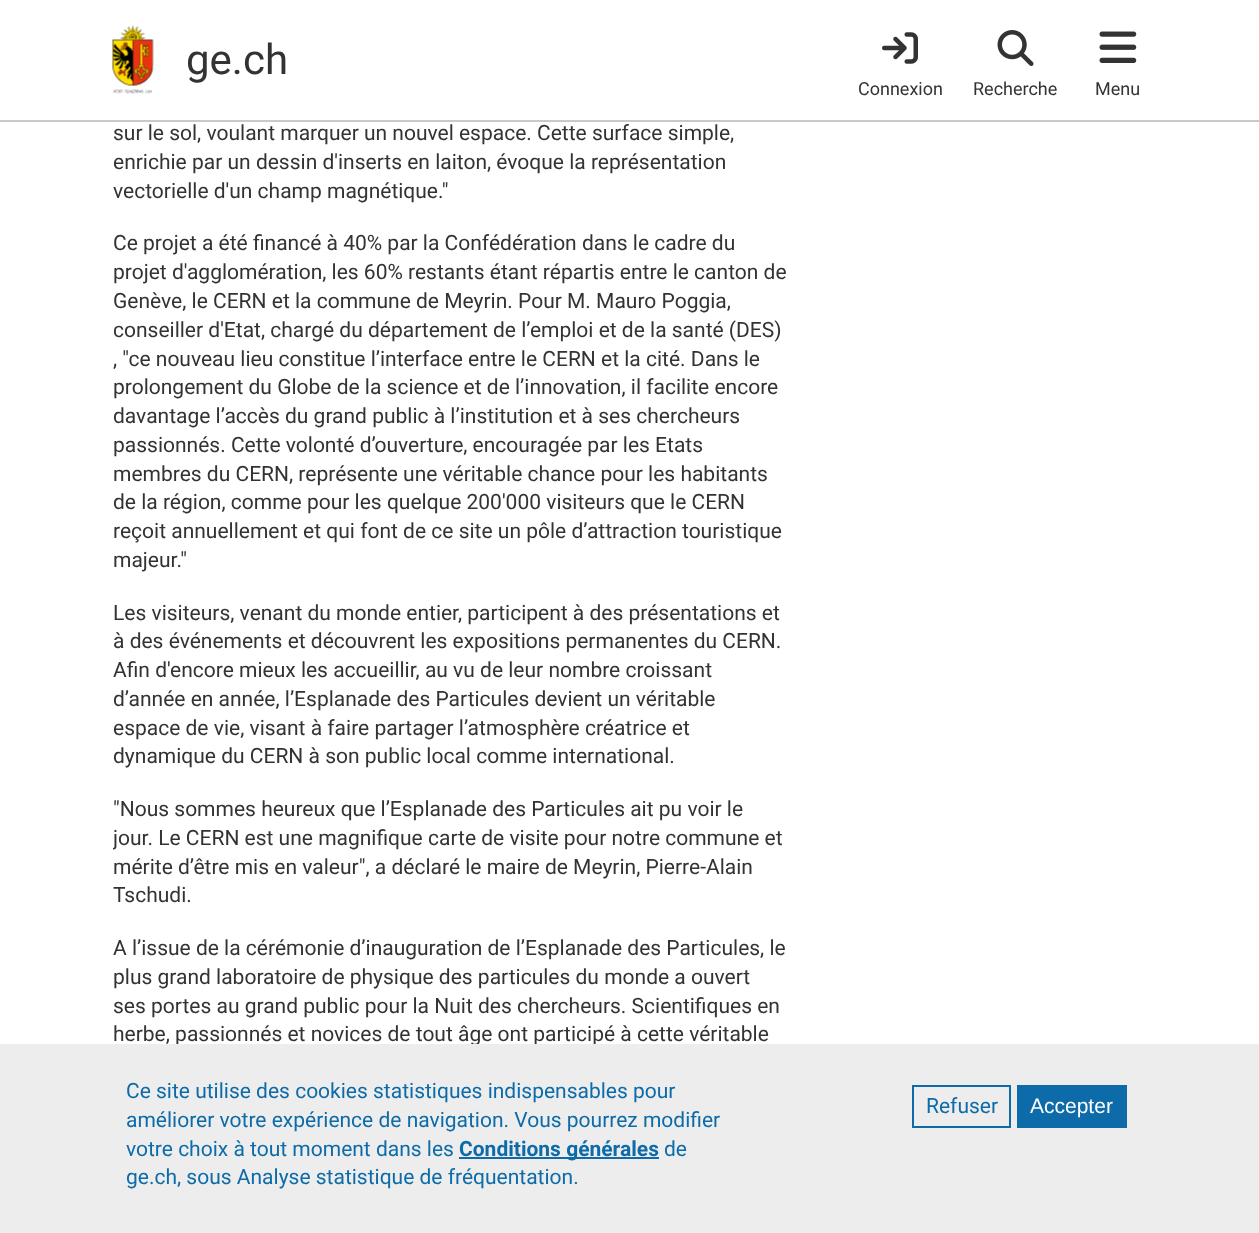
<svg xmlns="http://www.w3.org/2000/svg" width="1259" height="1233">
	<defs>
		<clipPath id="clip1"><rect x="113" y="0" width="675" height="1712" /></clipPath>
	</defs>
	<rect width="100%" height="100%" fill="#FFFFFF" />
	<rect x="0" y="120" width="1259" height="2" fill="#C9C9C9" />
	<image x="112" y="25" width="42" height="69" href="assets/img1.png" />
	<text x="186" y="74" font-family="Roboto" font-size="42" fill="#333333">ge.ch</text>
	<image x="882" y="32" width="36" height="32" href="assets/img2.png" />
	<text x="858" y="95" font-family="Roboto" font-size="18" fill="#333333">Connexion</text>
	<image x="997" y="30" width="37" height="36" href="assets/img3.png" />
	<text x="973" y="95" font-family="Roboto" font-size="18" fill="#333333">Recherche</text>
	<image x="1099" y="31" width="38" height="32" href="assets/img4.png" />
	<text x="1095" y="95" font-family="Roboto" font-size="18" fill="#333333">Menu</text>
	<g font-family="Roboto" font-size="21" fill="#333333">
		<text x="113" y="140">sur le sol, voulant marquer un nouvel espace. Cette surface simple,</text>
		<text x="113" y="169">enrichie par un dessin d'inserts en laiton, évoque la représentation</text>
		<text x="113" y="198">vectorielle d'un champ magnétique."</text>
		<text x="113" y="250">Ce projet a été financé à 40% par la Confédération dans le cadre du</text>
		<text x="113" y="279">projet d'agglomération, les 60% restants étant répartis entre le canton de</text>
		<text x="113" y="308">Genève, le CERN et la commune de Meyrin. Pour M. Mauro Poggia,</text>
		<text x="113" y="337">conseiller d'Etat, chargé du département de l’emploi et de la santé (DES)</text>
		<text x="113" y="366">, "ce nouveau lieu constitue l’interface entre le CERN et la cité. Dans le</text>
		<text x="113" y="394">prolongement du Globe de la science et de l’innovation, il facilite encore</text>
		<text x="113" y="423">davantage l’accès du grand public à l’institution et à ses chercheurs</text>
		<text x="113" y="452">passionnés. Cette volonté d’ouverture, encouragée par les Etats</text>
		<text x="113" y="481">membres du CERN, représente une véritable chance pour les habitants</text>
		<text x="113" y="509">de la région, comme pour les quelque 200'000 visiteurs que le CERN</text>
		<text x="113" y="538">reçoit annuellement et qui font de ce site un pôle d’attraction touristique</text>
		<text x="113" y="567">majeur."</text>
		<text x="113" y="620">Les visiteurs, venant du monde entier, participent à des présentations et</text>
		<text x="113" y="648">à des événements et découvrent les expositions permanentes du CERN.</text>
		<text x="113" y="677">Afin d'encore mieux les accueillir, au vu de leur nombre croissant</text>
		<text x="113" y="706">d’année en année, l’Esplanade des Particules devient un véritable</text>
		<text x="113" y="735">espace de vie, visant à faire partager l’atmosphère créatrice et</text>
		<text x="113" y="763">dynamique du CERN à son public local comme international.</text>
		<text x="113" y="816">"Nous sommes heureux que l’Esplanade des Particules ait pu voir le</text>
	</g>
	<g clip-path="url(#clip1)">
		<text x="113" y="845" font-family="Roboto" font-size="21" fill="#333333">jour. Le CERN est une magnifique carte de visite pour notre commune et</text>
	</g>
	<g font-family="Roboto" font-size="21" fill="#333333">
		<text x="113" y="874">mérite d’être mis en valeur", a déclaré le maire de Meyrin, Pierre-Alain</text>
		<text x="113" y="902">Tschudi.</text>
		<text x="113" y="955">A l’issue de la cérémonie d’inauguration de l’Esplanade des Particules, le</text>
		<text x="113" y="984">plus grand laboratoire de physique des particules du monde a ouvert</text>
		<text x="113" y="1013">ses portes au grand public pour la Nuit des chercheurs. Scientifiques en</text>
		<text x="113" y="1041">herbe, passionnés et novices de tout âge ont participé à cette véritable</text>
	</g>
	<rect x="0" y="1044" width="1259" height="189" fill="#EDEDED" />
	<g font-family="Roboto" font-size="21" fill="#0C6BA8">
		<text x="126" y="1098">Ce site utilise des cookies statistiques indispensables pour</text>
		<text x="126" y="1127">améliorer votre expérience de navigation. Vous pourrez modifier</text>
		<text x="126" y="1156">votre choix à tout moment dans les</text>
	</g>
	<rect x="459" y="1157" width="200" height="2" fill="#0C6BA8" />
	<text x="459" y="1156" font-family="Roboto" font-size="21" font-weight="700" fill="#0C6BA8">Conditions générales</text>
	<g font-family="Roboto" font-size="21" fill="#0C6BA8">
		<text x="664" y="1156">de</text>
		<text x="126" y="1184">ge.ch, sous Analyse statistique de fréquentation.</text>
	</g>
	<rect x="913" y="1086" width="97" height="41" fill="none" stroke="#0C6BA8" stroke-width="2" />
	<text x="926" y="1113" font-family="Roboto" font-size="21" fill="#0C6BA8">Refuser</text>
	<rect x="1017" y="1085" width="110" height="43" fill="#0C6BA8" />
	<text x="1030" y="1113" font-family="Liberation Sans" font-size="21" fill="#FFFFFF">Accepter</text>
</svg>
